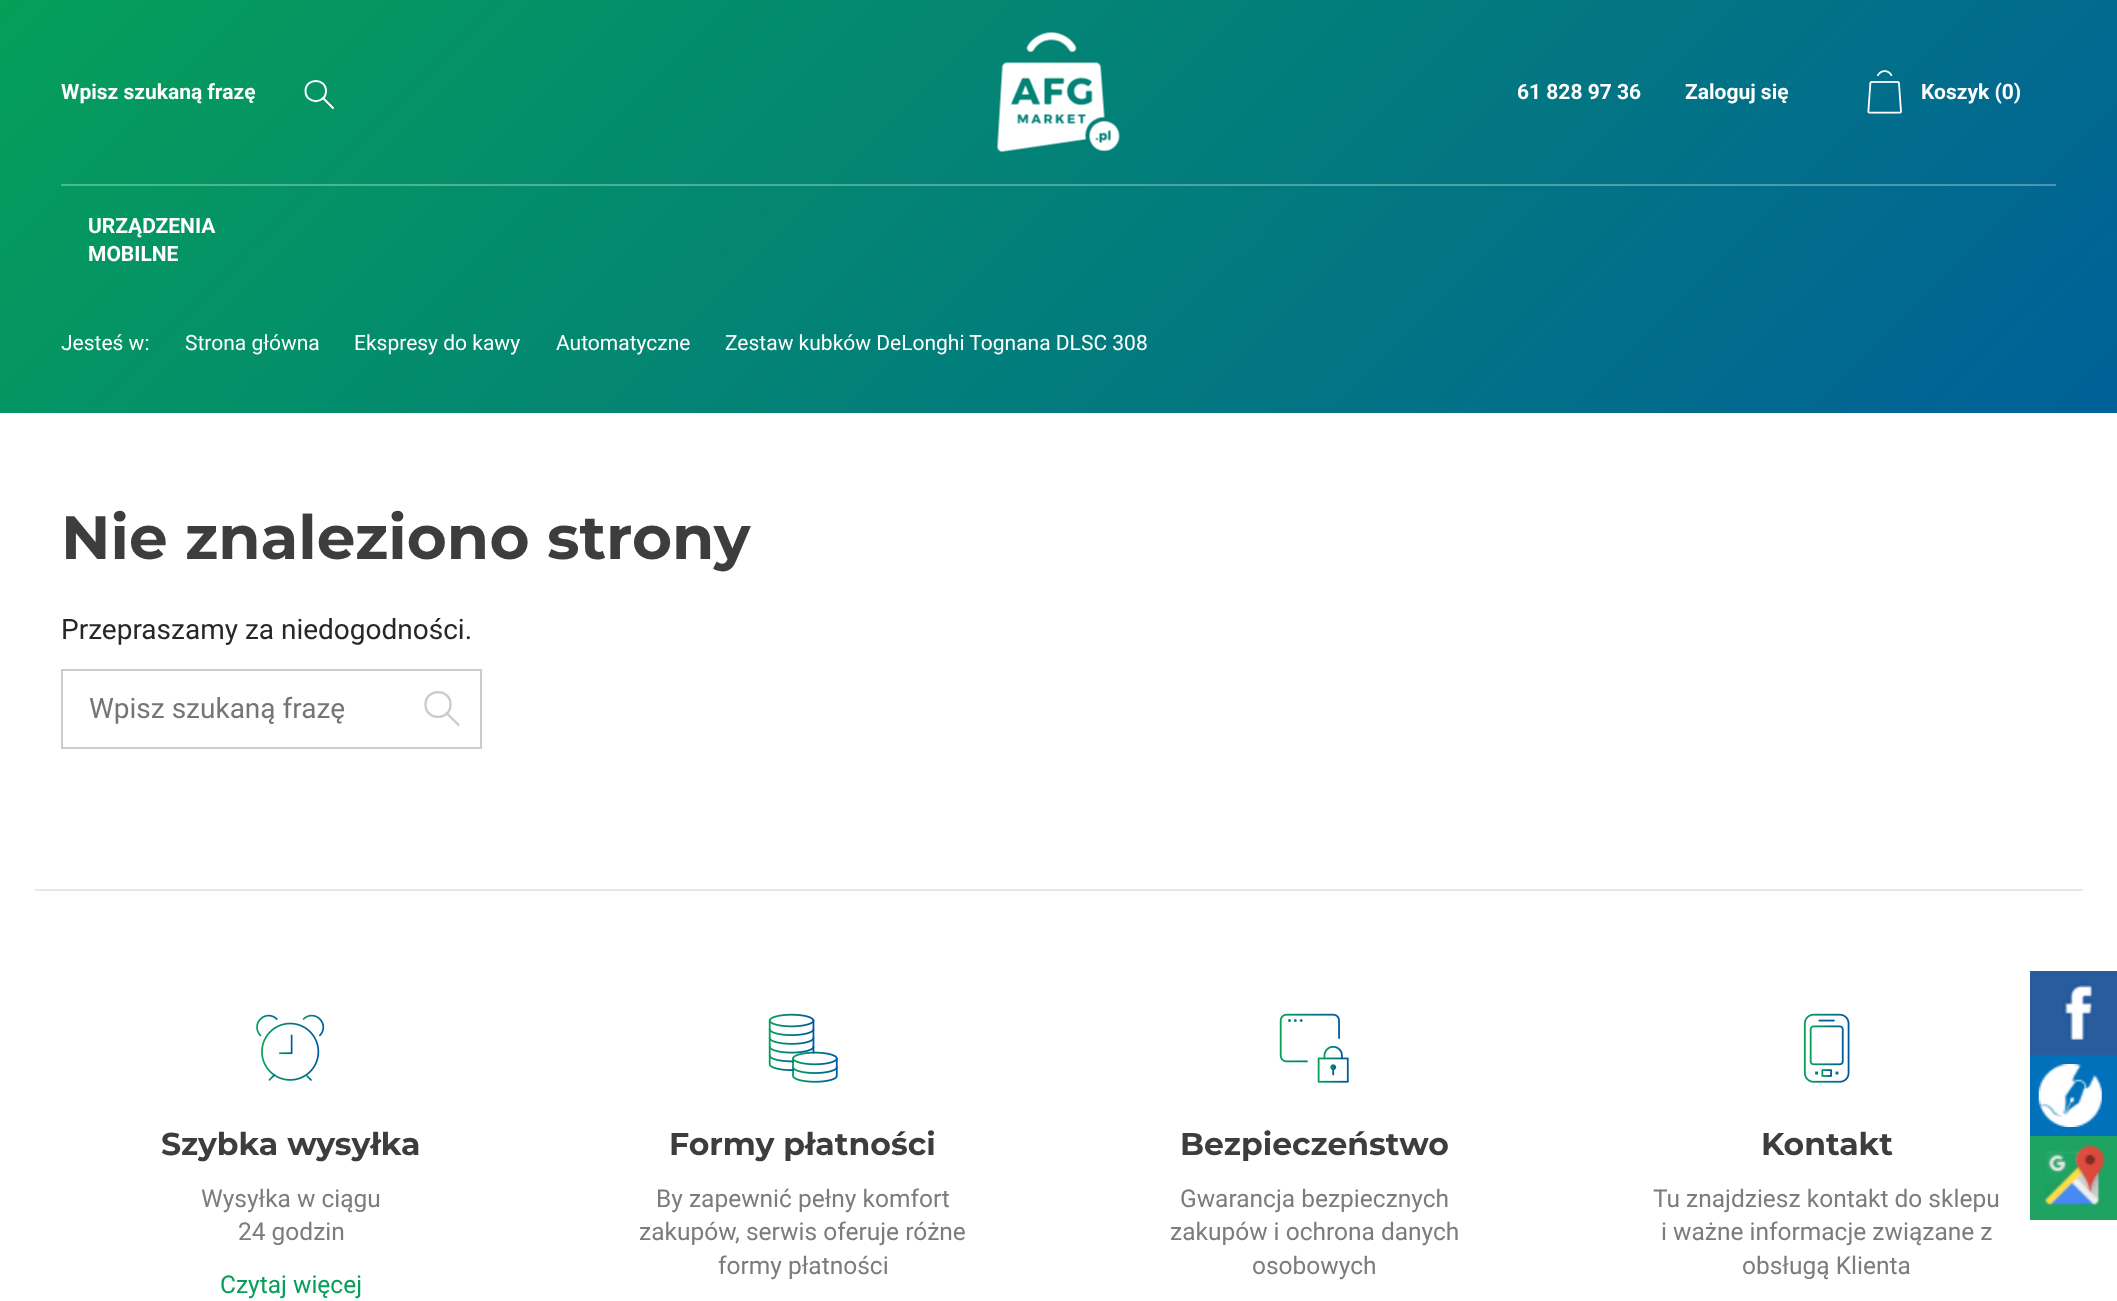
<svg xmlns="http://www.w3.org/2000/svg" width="2117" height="1301">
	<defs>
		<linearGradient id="g1" gradientUnits="userSpaceOnUse" x1="366" y1="-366" x2="1751" y2="1019"><stop offset="0" stop-color="#059F59" /><stop offset="1" stop-color="#005A9F" /></linearGradient>
		<linearGradient id="g2" gradientUnits="userSpaceOnUse" x1="366" y1="-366" x2="1751" y2="1019"><stop offset="0" stop-color="#50BC8B" /><stop offset="1" stop-color="#4D8CBC" /></linearGradient>
	</defs>
	<rect width="100%" height="100%" fill="#FFFFFF" />
	<rect x="0" y="0" width="2117" height="413" fill="url(#g1)" />
	<rect x="61" y="184" width="1995" height="2" fill="url(#g2)" />
	<text x="61" y="99" font-family="Roboto" font-size="21" font-weight="700" fill="#FFFFFF">Wpisz szukaną frazę</text>
	<path d="M323 98L333 108" fill="none" stroke="#FFFFFF" stroke-width="2" stroke-linecap="round" />
	<path d="M326 91C326 104.5 305.5 104.5 305.5 91C305.5 77.5 326 77.5 326 91Z" fill="none" stroke="#FFFFFF" stroke-width="2" />
	<image x="997" y="32" width="123" height="120" href="assets/img1.png" />
	<g font-family="Roboto" font-size="21" font-weight="700" fill="#FFFFFF">
		<text x="1517" y="99">61 828 97 36</text>
		<text x="1685" y="99">Zaloguj się</text>
	</g>
	<image x="1867" y="70" width="35" height="44" href="assets/img2.png" />
	<g font-family="Roboto" font-size="21" font-weight="700" fill="#FFFFFF">
		<text x="1921" y="99">Koszyk (0)</text>
		<text x="88" y="233">URZĄDZENIA</text>
		<text x="88" y="261">MOBILNE</text>
	</g>
	<g font-family="Roboto" font-size="21" fill="#FFFFFF">
		<text x="61" y="350">Jesteś w:</text>
		<text x="185" y="350">Strona główna</text>
		<text x="354" y="350">Ekspresy do kawy</text>
		<text x="556" y="350">Automatyczne</text>
		<text x="725" y="350">Zestaw kubków DeLonghi Tognana DLSC 308</text>
	</g>
	<text x="61" y="559" font-family="Montserrat" font-size="61.25" font-weight="700" fill="#3D3D3D">Nie znaleziono strony</text>
	<text x="61" y="639" font-family="Roboto" font-size="28" fill="#272727">Przepraszamy za niedogodności.</text>
	<rect x="61" y="669" width="420" height="2" fill="#CCCCCC" />
	<rect x="61" y="747" width="350" height="2" fill="#CCCCCC" />
	<rect x="61" y="669" width="2" height="80" fill="#CCCCCC" />
	<text x="89" y="718" font-family="Roboto" font-size="28" fill="#757575">Wpisz szukaną frazę</text>
	<rect x="480" y="669" width="2" height="80" fill="#CCCCCC" />
	<rect x="411" y="747" width="70" height="2" fill="#CCCCCC" />
	<path d="M446.5 713L458.5 725" fill="none" stroke="#CCCCCC" stroke-width="2.4" stroke-linecap="round" />
	<path d="M450.5 704.5C450.5 721 425.5 721 425.5 704.5C425.5 688 450.5 688 450.5 704.5Z" fill="none" stroke="#CCCCCC" stroke-width="2.4" />
	<rect x="35" y="889" width="2048" height="2" fill="#E6E6E6" />
	<image x="256" y="1014" width="69" height="67" href="assets/img3.png" />
	<text x="161" y="1155" font-family="Montserrat" font-size="31.5" font-weight="700" fill="#3D3D3D">Szybka wysyłka</text>
	<g font-family="Roboto" font-size="24.5" fill="#7C7C7C">
		<text x="201" y="1207">Wysyłka w ciągu</text>
		<text x="238" y="1240">24 godzin</text>
	</g>
	<text x="220" y="1293" font-family="Roboto" font-size="24.5" fill="#059F59">Czytaj więcej</text>
	<image x="768" y="1013" width="70" height="70" href="assets/img4.png" />
	<text x="669" y="1155" font-family="Montserrat" font-size="31.5" font-weight="700" fill="#3D3D3D">Formy płatności</text>
	<g font-family="Roboto" font-size="24.5" fill="#7C7C7C">
		<text x="656" y="1207">By zapewnić pełny komfort</text>
		<text x="639" y="1240">zakupów, serwis oferuje różne</text>
		<text x="718" y="1274">formy płatności</text>
	</g>
	<image x="1279" y="1013" width="70" height="70" href="assets/img5.png" />
	<text x="1180" y="1155" font-family="Montserrat" font-size="31.5" font-weight="700" fill="#3D3D3D">Bezpieczeństwo</text>
	<g font-family="Roboto" font-size="24.5" fill="#7C7C7C">
		<text x="1180" y="1207">Gwarancja bezpiecznych</text>
		<text x="1170" y="1240">zakupów i ochrona danych</text>
		<text x="1252" y="1274">osobowych</text>
	</g>
	<image x="1803" y="1013" width="47" height="70" href="assets/img6.png" />
	<text x="1761" y="1155" font-family="Montserrat" font-size="31.5" font-weight="700" fill="#3D3D3D">Kontakt</text>
	<g font-family="Roboto" font-size="24.5" fill="#7C7C7C">
		<text x="1653" y="1207">Tu znajdziesz kontakt do sklepu</text>
		<text x="1661" y="1240">i ważne informacje związane z</text>
		<text x="1742" y="1274">obsługą Klienta</text>
	</g>
	<rect x="2030" y="971" width="87" height="84" fill="#295C9E" />
	<image x="2063" y="983" width="30" height="57" href="assets/img7.png" />
	<rect x="2030" y="1055" width="87" height="81" fill="#0171BB" />
	<image x="2038" y="1064" width="64" height="63" href="assets/img8.png" />
	<rect x="2030" y="1136" width="87" height="84" fill="#1EA362" />
	<image x="2044" y="1144" width="62" height="62" href="assets/img9.png" />
</svg>
